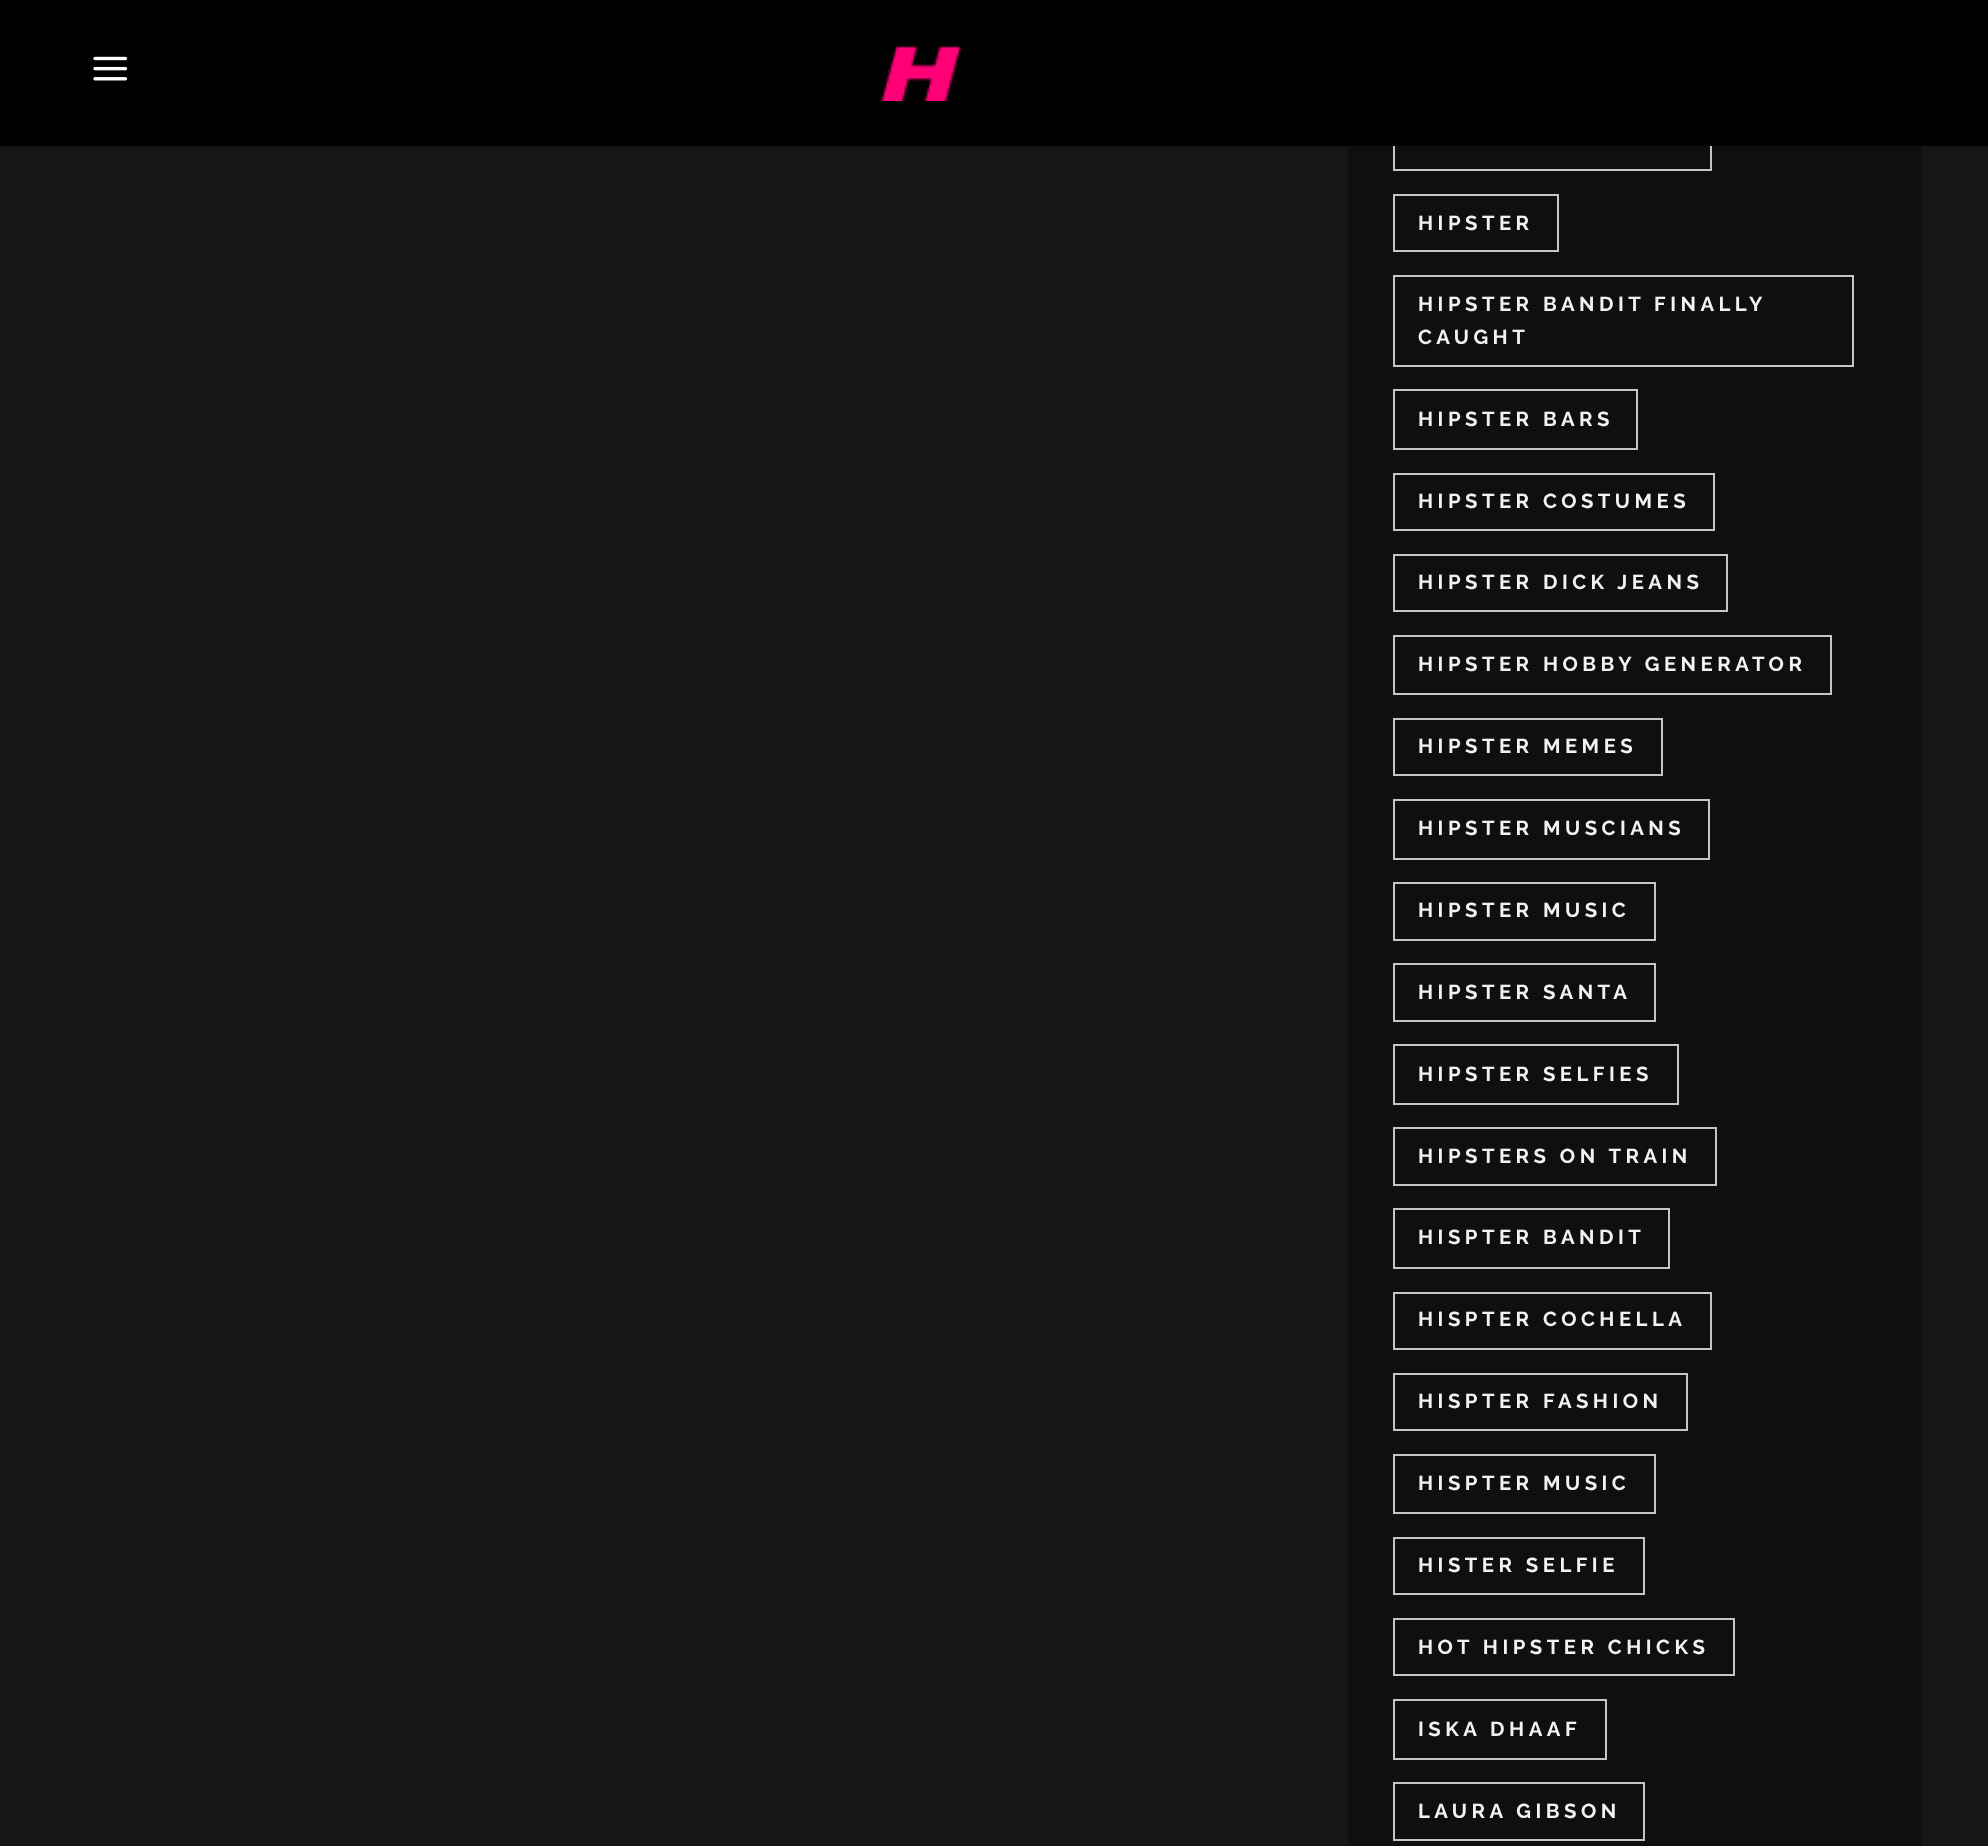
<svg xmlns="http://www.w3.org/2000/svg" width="1988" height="1846">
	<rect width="100%" height="100%" fill="#161616" />
	<rect x="1348" y="146" width="574" height="1700" fill="#0F0F0F" />
	<rect x="1394" y="114" width="317" height="56" fill="none" stroke="#C5C5C5" stroke-width="2" />
	<rect x="0" y="0" width="1988" height="146" fill="#010101" />
	<image x="93" y="56" width="35" height="25" href="assets/img1.png" />
	<image x="881" y="46" width="81" height="55" href="assets/img2.png" />
	<rect x="1394" y="195" width="164" height="56" fill="none" stroke="#C5C5C5" stroke-width="2" />
	<text x="1418" y="230" font-family="Raleway" font-size="20.25" font-weight="700" letter-spacing="4.5" fill="#F2F2F2">HIPSTER</text>
	<rect x="1394" y="276" width="459" height="90" fill="none" stroke="#C5C5C5" stroke-width="2" />
	<g font-family="Raleway" font-size="20.25" font-weight="700" letter-spacing="4.5" fill="#F2F2F2">
		<text x="1418" y="311">HIPSTER BANDIT FINALLY</text>
		<text x="1418" y="344">CAUGHT</text>
	</g>
	<rect x="1394" y="390" width="243" height="59" fill="none" stroke="#C5C5C5" stroke-width="2" />
	<text x="1418" y="426" font-family="Raleway" font-size="20.25" font-weight="700" letter-spacing="4.5" fill="#F2F2F2">HIPSTER BARS</text>
	<rect x="1394" y="474" width="320" height="56" fill="none" stroke="#C5C5C5" stroke-width="2" />
	<text x="1418" y="508" font-family="Raleway" font-size="20.25" font-weight="700" letter-spacing="4.5" fill="#F2F2F2">HIPSTER COSTUMES</text>
	<rect x="1394" y="555" width="333" height="56" fill="none" stroke="#C5C5C5" stroke-width="2" />
	<text x="1418" y="589" font-family="Raleway" font-size="20.25" font-weight="700" letter-spacing="4.5" fill="#F2F2F2">HIPSTER DICK JEANS</text>
	<rect x="1394" y="636" width="437" height="58" fill="none" stroke="#C5C5C5" stroke-width="2" />
	<text x="1418" y="671" font-family="Raleway" font-size="20.25" font-weight="700" letter-spacing="4.5" fill="#F2F2F2">HIPSTER HOBBY GENERATOR</text>
	<rect x="1394" y="719" width="268" height="56" fill="none" stroke="#C5C5C5" stroke-width="2" />
	<text x="1418" y="753" font-family="Raleway" font-size="20.25" font-weight="700" letter-spacing="4.5" fill="#F2F2F2">HIPSTER MEMES</text>
	<rect x="1394" y="800" width="315" height="59" fill="none" stroke="#C5C5C5" stroke-width="2" />
	<text x="1418" y="835" font-family="Raleway" font-size="20.25" font-weight="700" letter-spacing="4.5" fill="#F2F2F2">HIPSTER MUSCIANS</text>
	<rect x="1394" y="883" width="261" height="57" fill="none" stroke="#C5C5C5" stroke-width="2" />
	<text x="1418" y="917" font-family="Raleway" font-size="20.25" font-weight="700" letter-spacing="4.5" fill="#F2F2F2">HIPSTER MUSIC</text>
	<rect x="1394" y="964" width="261" height="57" fill="none" stroke="#C5C5C5" stroke-width="2" />
	<text x="1418" y="999" font-family="Raleway" font-size="20.25" font-weight="700" letter-spacing="4.5" fill="#F2F2F2">HIPSTER SANTA</text>
	<rect x="1394" y="1045" width="284" height="59" fill="none" stroke="#C5C5C5" stroke-width="2" />
	<text x="1418" y="1081" font-family="Raleway" font-size="20.25" font-weight="700" letter-spacing="4.5" fill="#F2F2F2">HIPSTER SELFIES</text>
	<rect x="1394" y="1128" width="322" height="57" fill="none" stroke="#C5C5C5" stroke-width="2" />
	<text x="1418" y="1163" font-family="Raleway" font-size="20.25" font-weight="700" letter-spacing="4.5" fill="#F2F2F2">HIPSTERS ON TRAIN</text>
	<rect x="1394" y="1209" width="275" height="59" fill="none" stroke="#C5C5C5" stroke-width="2" />
	<text x="1418" y="1244" font-family="Raleway" font-size="20.25" font-weight="700" letter-spacing="4.5" fill="#F2F2F2">HISPTER BANDIT</text>
	<rect x="1394" y="1293" width="317" height="56" fill="none" stroke="#C5C5C5" stroke-width="2" />
	<text x="1418" y="1326" font-family="Raleway" font-size="20.25" font-weight="700" letter-spacing="4.5" fill="#F2F2F2">HISPTER COCHELLA</text>
	<rect x="1394" y="1374" width="293" height="56" fill="none" stroke="#C5C5C5" stroke-width="2" />
	<text x="1418" y="1408" font-family="Raleway" font-size="20.25" font-weight="700" letter-spacing="4.5" fill="#F2F2F2">HISPTER FASHION</text>
	<rect x="1394" y="1455" width="261" height="58" fill="none" stroke="#C5C5C5" stroke-width="2" />
	<text x="1418" y="1490" font-family="Raleway" font-size="20.25" font-weight="700" letter-spacing="4.5" fill="#F2F2F2">HISPTER MUSIC</text>
	<rect x="1394" y="1538" width="250" height="56" fill="none" stroke="#C5C5C5" stroke-width="2" />
	<text x="1418" y="1572" font-family="Raleway" font-size="20.25" font-weight="700" letter-spacing="4.5" fill="#F2F2F2">HISTER SELFIE</text>
	<rect x="1394" y="1619" width="340" height="56" fill="none" stroke="#C5C5C5" stroke-width="2" />
	<text x="1418" y="1654" font-family="Raleway" font-size="20.25" font-weight="700" letter-spacing="4.5" fill="#F2F2F2">HOT HIPSTER CHICKS</text>
	<rect x="1394" y="1700" width="212" height="59" fill="none" stroke="#C5C5C5" stroke-width="2" />
	<text x="1418" y="1736" font-family="Raleway" font-size="20.25" font-weight="700" letter-spacing="4.5" fill="#F2F2F2">ISKA DHAAF</text>
	<rect x="1394" y="1783" width="250" height="57" fill="none" stroke="#C5C5C5" stroke-width="2" />
	<text x="1418" y="1818" font-family="Raleway" font-size="20.25" font-weight="700" letter-spacing="4.5" fill="#F2F2F2">LAURA GIBSON</text>
</svg>
